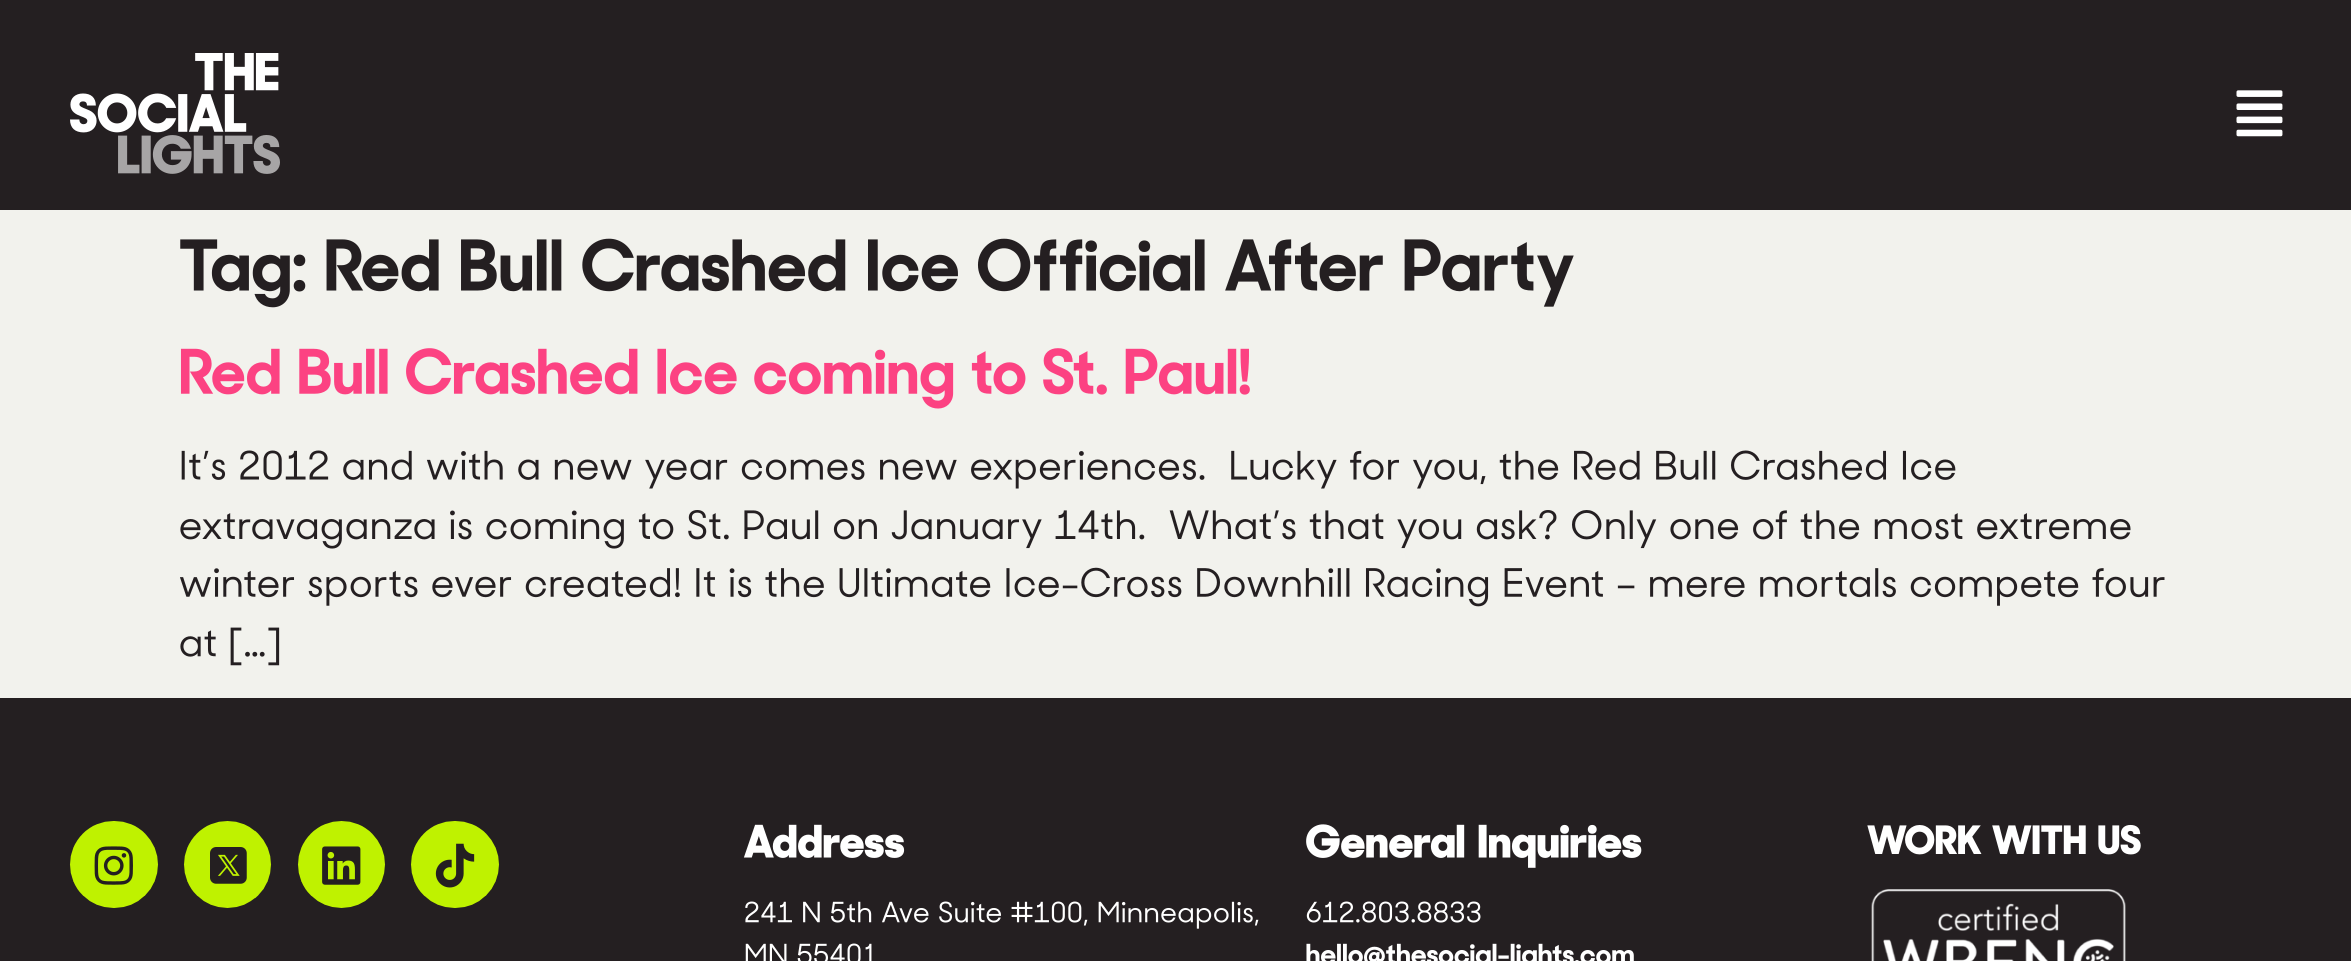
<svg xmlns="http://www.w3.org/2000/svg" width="2351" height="961">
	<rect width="100%" height="100%" fill="#F2F2ED" />
	<rect x="0" y="0" width="2351" height="210" fill="#241F21" />
	<image x="70" y="53" width="210" height="121" href="assets/img1.png" />
	<image x="2236" y="90" width="47" height="47" href="assets/img2.png" />
	<image x="180" y="239" width="126" height="69" href="assets/img3.png" />
	<image x="326" y="238" width="1248" height="69" href="assets/img4.png" />
	<image x="180" y="348" width="1070" height="61" href="assets/img5.png" />
	<image x="181" y="450" width="1775" height="39" href="assets/img6.png" />
	<image x="180" y="510" width="1951" height="39" href="assets/img7.png" />
	<image x="180" y="567" width="1985" height="40" href="assets/img8.png" />
	<image x="180" y="627" width="100" height="39" href="assets/img9.png" />
	<rect x="0" y="698" width="2351" height="263" fill="#241F21" />
	<rect x="70" y="821" width="88" height="87" rx="43.5" fill="#BFF200" />
	<image x="94" y="846" width="39" height="39" href="assets/img10.png" />
	<circle cx="227.5" cy="864.5" r="43.5" fill="#BFF200" />
	<image x="210" y="847" width="37" height="37" href="assets/img11.png" />
	<circle cx="341.5" cy="864.5" r="43.5" fill="#BFF200" />
	<image x="322" y="846" width="39" height="39" href="assets/img12.png" />
	<rect x="411" y="821" width="88" height="87" rx="43.5" fill="#BFF200" />
	<image x="435" y="843" width="40" height="45" href="assets/img13.png" />
	<image x="743" y="824" width="162" height="34" href="assets/img14.png" />
	<image x="745" y="901" width="514" height="28" href="assets/img15.png" />
	<image x="745" y="943" width="127" height="18" href="assets/img16.png" />
	<image x="1306" y="824" width="336" height="44" href="assets/img17.png" />
	<image x="1306" y="901" width="175" height="22" href="assets/img18.png" />
	<image x="1306" y="943" width="328" height="18" href="assets/img19.png" />
	<image x="1867" y="824" width="274" height="31" href="assets/img20.png" />
	<image x="1871" y="889" width="255" height="72" href="assets/img21.png" />
</svg>
